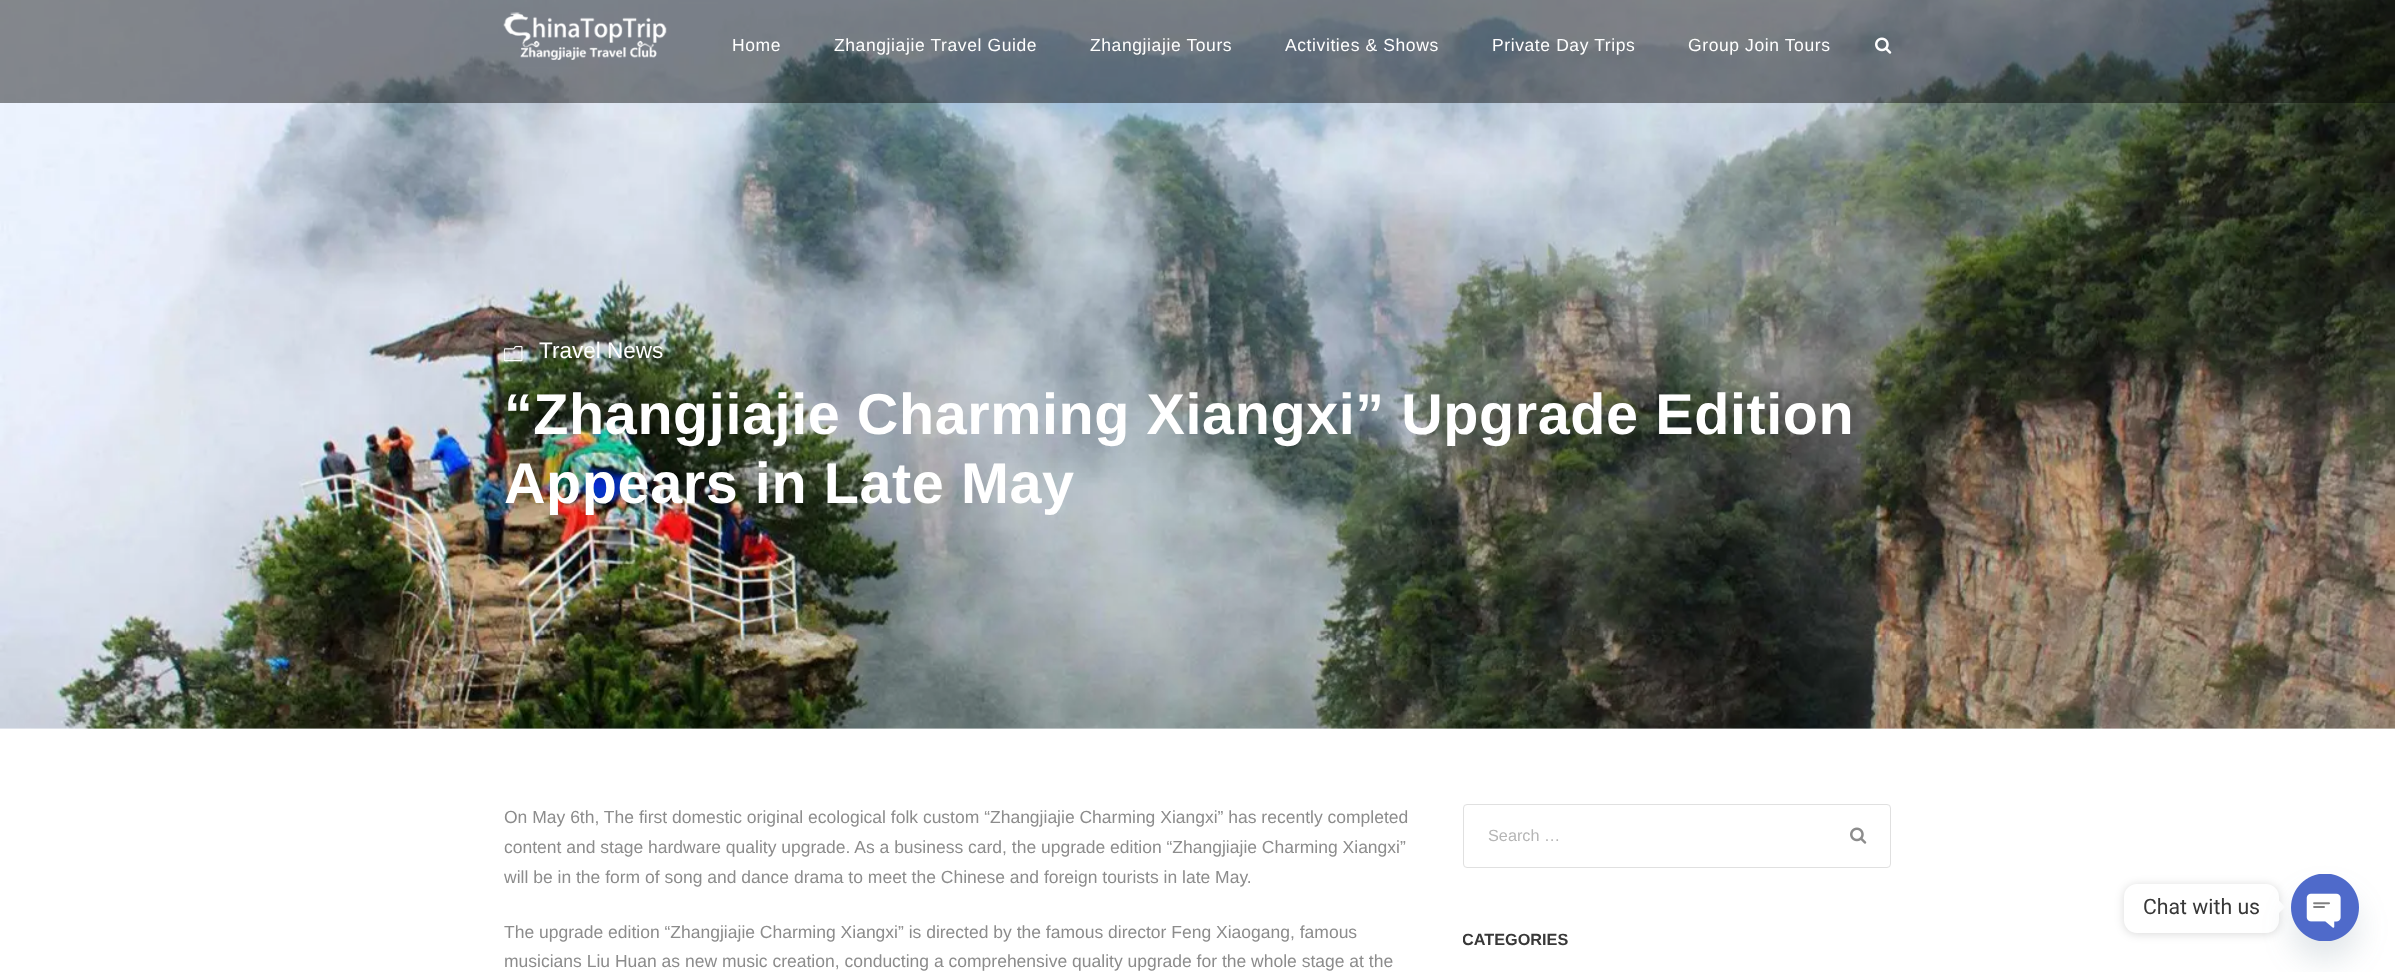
<svg xmlns="http://www.w3.org/2000/svg" width="2395" height="972">
	<defs>
		<clipPath id="clip1"><rect x="1463" y="930" width="428" height="19" /></clipPath>
	</defs>
	<rect width="100%" height="100%" fill="#FFFFFF" />
	<image x="0" y="0" width="2395" height="729" href="assets/img3.png" />
	<rect x="0" y="0" width="2395" height="103" fill="#000000" fill-opacity="0.45" />
	<image x="503" y="12" width="164" height="48" href="assets/img1.png" />
	<g font-family="Liberation Sans" font-size="17.5" letter-spacing="0.6" fill="#FFFFFF">
		<text x="732" y="51">Home</text>
		<text x="834" y="51">Zhangjiajie Travel Guide</text>
		<text x="1090" y="51">Zhangjiajie Tours</text>
		<text x="1285" y="51">Activities &amp; Shows</text>
		<text x="1492" y="51">Private Day Trips</text>
		<text x="1688" y="51">Group Join Tours</text>
	</g>
	<image x="1875" y="37" width="17" height="17" href="assets/img2.png" />
	<image x="504" y="345" width="19" height="17" href="assets/img4.png" />
	<text x="539" y="358" font-family="Liberation Sans" font-size="22.5" fill="#FFFFFF">Travel News</text>
	<g font-family="Liberation Sans" font-size="57.5" font-weight="700" letter-spacing="0.6" fill="#FFFFFF">
		<text x="504" y="434">“Zhangjiajie Charming Xiangxi” Upgrade Edition</text>
		<text x="504" y="503">Appears in Late May</text>
	</g>
	<g font-family="Liberation Sans" font-size="17.5" fill="#8C8C8C">
		<text x="504" y="823">On May 6th, The first domestic original ecological folk custom “Zhangjiajie Charming Xiangxi” has recently completed</text>
		<text x="504" y="853">content and stage hardware quality upgrade. As a business card, the upgrade edition “Zhangjiajie Charming Xiangxi”</text>
		<text x="504" y="883">will be in the form of song and dance drama to meet the Chinese and foreign tourists in late May.</text>
		<text x="504" y="938">The upgrade edition “Zhangjiajie Charming Xiangxi” is directed by the famous director Feng Xiaogang, famous</text>
		<text x="504" y="967">musicians Liu Huan as new music creation, conducting a comprehensive quality upgrade for the whole stage at the</text>
	</g>
	<rect x="1463.5" y="804.5" width="427" height="63" rx="3.5" fill="none" stroke="#E0E0E0" />
	<text x="1488" y="841" font-family="Liberation Sans" font-size="16.25" fill="#B5B5B5">Search …</text>
	<image x="1850" y="827" width="17" height="17" href="assets/img5.png" />
	<g clip-path="url(#clip1)">
		<text x="1462" y="945" font-family="Liberation Sans" font-size="16.25" font-weight="700" fill="#383838">CATEGORIES</text>
	</g>
	<rect x="2124" y="885" width="155" height="49" rx="13" fill="#000000" fill-opacity="0.15" filter="blur(5px)" />
	<rect x="2124" y="884" width="155" height="49" rx="13" fill="#FFFFFF" />
	<text x="2143" y="914" font-family="Roboto" font-size="21.25" fill="#383838">Chat with us</text>
	<path d="M2279 913V900.5L2285 907Z" fill="#FFFFFF" />
	<rect x="2291" y="894" width="68" height="67" rx="33.5" fill="#49687E" fill-opacity="0.16" filter="blur(15px)" />
	<image x="2291" y="874" width="68" height="67" href="assets/img6.png" />
</svg>
